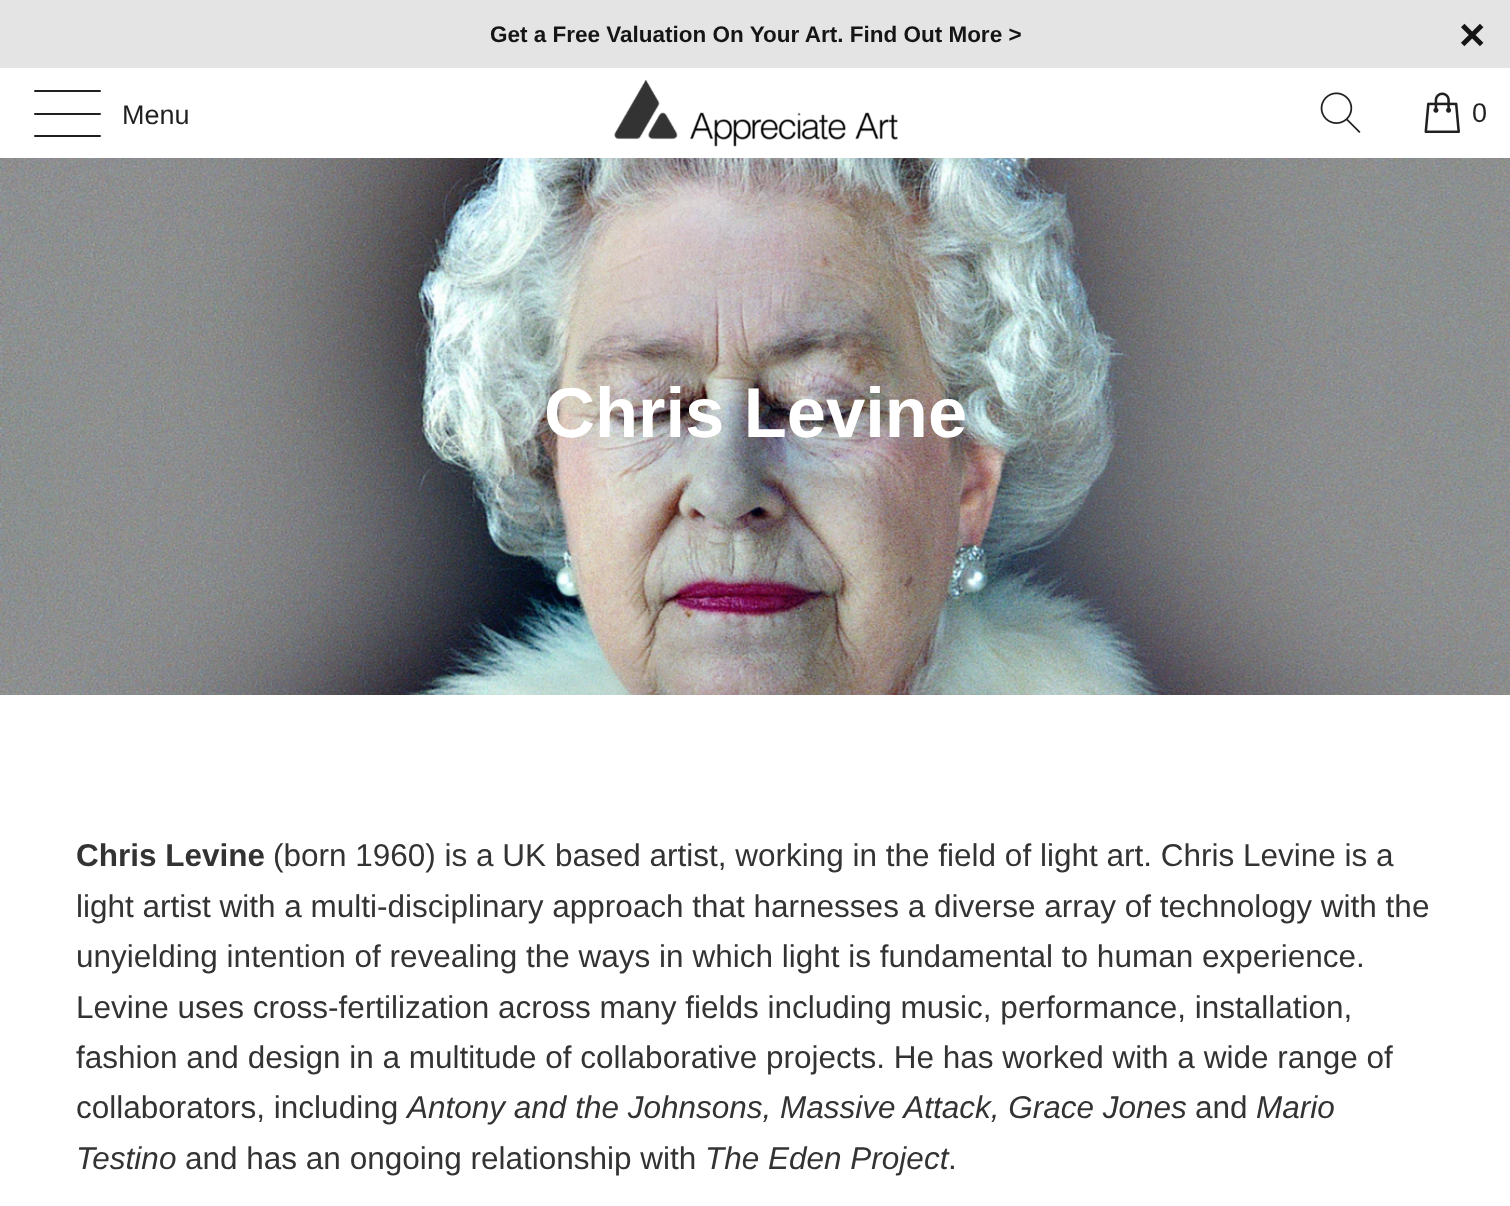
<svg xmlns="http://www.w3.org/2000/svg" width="1510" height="1206">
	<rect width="100%" height="100%" fill="#FFFFFF" />
	<rect x="0" y="0" width="1510" height="68" fill="#E4E4E4" />
	<text x="490" y="42" font-family="Liberation Sans" font-size="22.5" font-weight="700" fill="#151515">Get a Free Valuation On Your Art. Find Out More &gt;</text>
	<text x="1459" y="50" font-family="Liberation Sans" font-size="45" font-weight="700" fill="#151515">×</text>
	<rect x="34" y="90" width="67" height="2" rx="1" fill="#221F1F" />
	<rect x="34" y="113" width="67" height="2" rx="1" fill="#221F1F" />
	<rect x="34" y="135" width="67" height="2" rx="1" fill="#221F1F" />
	<text x="122" y="124" font-family="Liberation Sans" font-size="27" fill="#221F1F">Menu</text>
	<image x="614" y="79" width="284" height="68" href="assets/img1.png" />
	<image x="1320" y="92" width="41" height="41" href="assets/img2.png" />
	<image x="1424" y="92" width="36" height="41" href="assets/img3.png" />
	<text x="1472" y="122" font-family="Liberation Sans" font-size="27" letter-spacing="2" fill="#221F1F">0</text>
	<image x="0" y="158" width="1510" height="537" href="assets/img4.png" />
	<text x="544" y="437" font-family="Liberation Sans" font-size="70.5" font-weight="700" fill="#FFFFFF">Chris Levine</text>
	<text x="76" y="866" font-family="Liberation Sans" font-size="31.5" font-weight="700" fill="#333333">Chris Levine</text>
	<g font-family="Liberation Sans" font-size="31.5" fill="#333333">
		<text x="273" y="866">(born 1960) is a UK based artist, working in the field of light art. Chris Levine is a</text>
		<text x="76" y="917">light artist with a multi-disciplinary approach that harnesses a diverse array of technology with the</text>
		<text x="76" y="967">unyielding intention of revealing the ways in which light is fundamental to human experience.</text>
		<text x="76" y="1018">Levine uses cross-fertilization across many fields including music, performance, installation,</text>
		<text x="76" y="1068">fashion and design in a multitude of collaborative projects. He has worked with a wide range of</text>
		<text x="76" y="1118">collaborators, including</text>
	</g>
	<text x="407" y="1118" font-family="Liberation Sans" font-size="31.5" font-style="italic" fill="#333333">Antony and the Johnsons, Massive Attack, Grace Jones</text>
	<text x="1195" y="1118" font-family="Liberation Sans" font-size="31.5" fill="#333333">and</text>
	<g font-family="Liberation Sans" font-size="31.5" font-style="italic" fill="#333333">
		<text x="1256" y="1118">Mario</text>
		<text x="76" y="1169">Testino</text>
	</g>
	<text x="185" y="1169" font-family="Liberation Sans" font-size="31.5" fill="#333333">and has an ongoing relationship with</text>
	<text x="705" y="1169" font-family="Liberation Sans" font-size="31.5" font-style="italic" fill="#333333">The Eden Project</text>
	<text x="948" y="1169" font-family="Liberation Sans" font-size="31.5" fill="#333333">.</text>
</svg>
